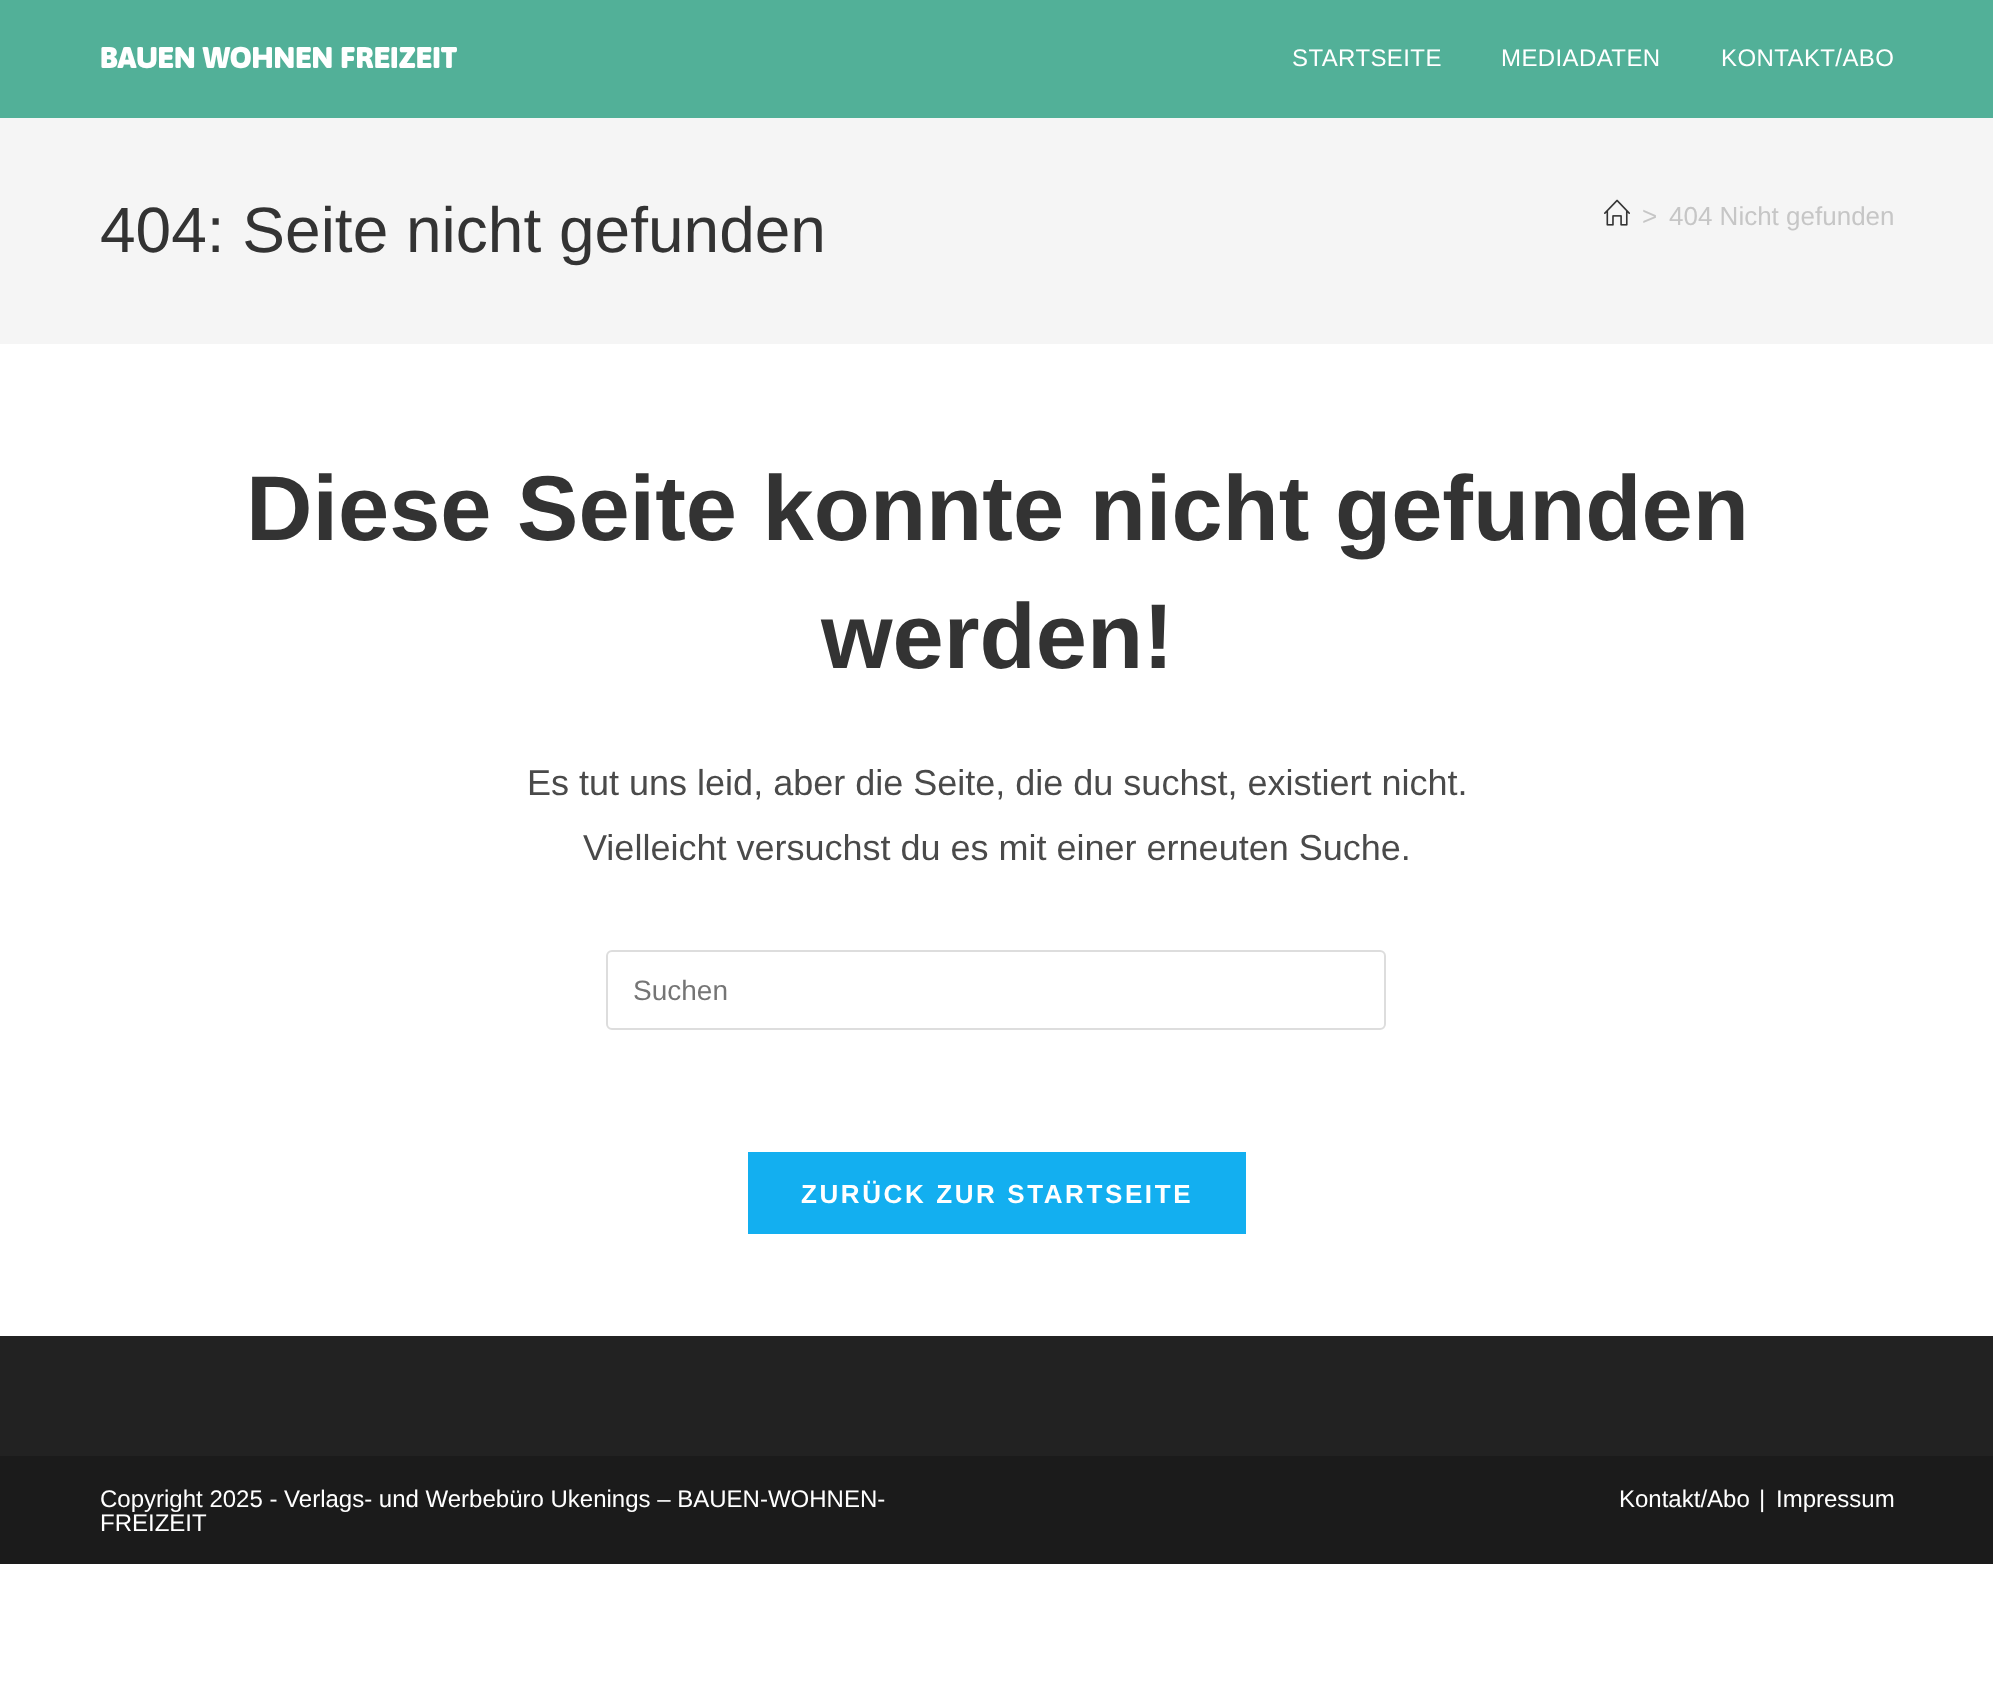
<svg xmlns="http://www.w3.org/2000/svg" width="1993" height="1684">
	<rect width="100%" height="100%" fill="#FFFFFF" />
	<rect x="0" y="0" width="1993" height="118" fill="#52B098" />
	<text x="100" y="68" font-family="Asap" font-size="30" font-weight="900" fill="#FFFFFF">BAUEN WOHNEN FREIZEIT</text>
	<g font-family="Liberation Sans" font-size="24" letter-spacing="0.4" fill="#FFFFFF">
		<text x="1292" y="66">STARTSEITE</text>
		<text x="1501" y="66">MEDIADATEN</text>
		<text x="1721" y="66">KONTAKT/ABO</text>
	</g>
	<rect x="0" y="118" width="1993" height="226" fill="#F5F5F5" />
	<text x="100" y="252" font-family="Liberation Sans" font-size="64" fill="#333333">404: Seite nicht gefunden</text>
	<image x="1604" y="199" width="26" height="27" href="assets/img1.png" />
	<g font-family="Liberation Sans" font-size="26" fill="#C6C6C6">
		<text x="1642" y="225">&gt;</text>
		<text x="1669" y="225">404 Nicht gefunden</text>
	</g>
	<g font-family="Liberation Sans" font-size="92" font-weight="700" fill="#333333">
		<text x="246" y="540">Diese Seite konnte nicht gefunden</text>
		<text x="821" y="668">werden!</text>
	</g>
	<g font-family="Liberation Sans" font-size="36" fill="#4A4A4A">
		<text x="527" y="795">Es tut uns leid, aber die Seite, die du suchst, existiert nicht.</text>
		<text x="583" y="860">Vielleicht versuchst du es mit einer erneuten Suche.</text>
	</g>
	<rect x="607" y="951" width="778" height="78" rx="5" fill="none" stroke="#DDDDDD" stroke-width="2" />
	<text x="633" y="1000" font-family="Liberation Sans" font-size="28" fill="#757575">Suchen</text>
	<rect x="748" y="1152" width="498" height="82" fill="#13AFF0" />
	<text x="801" y="1203" font-family="Liberation Sans" font-size="26" font-weight="700" letter-spacing="2.6" fill="#FFFFFF">ZURÜCK ZUR STARTSEITE</text>
	<rect x="0" y="1336" width="1993" height="120" fill="#222222" />
	<rect x="0" y="1456" width="1993" height="108" fill="#1B1B1B" />
	<g font-family="Liberation Sans" font-size="24" fill="#FFFFFF">
		<text x="100" y="1507">Copyright 2025 - Verlags- und Werbebüro Ukenings – BAUEN-WOHNEN-</text>
		<text x="100" y="1531">FREIZEIT</text>
		<text x="1619" y="1507">Kontakt/Abo</text>
		<text x="1759" y="1507">|</text>
		<text x="1776" y="1507">Impressum</text>
	</g>
</svg>
